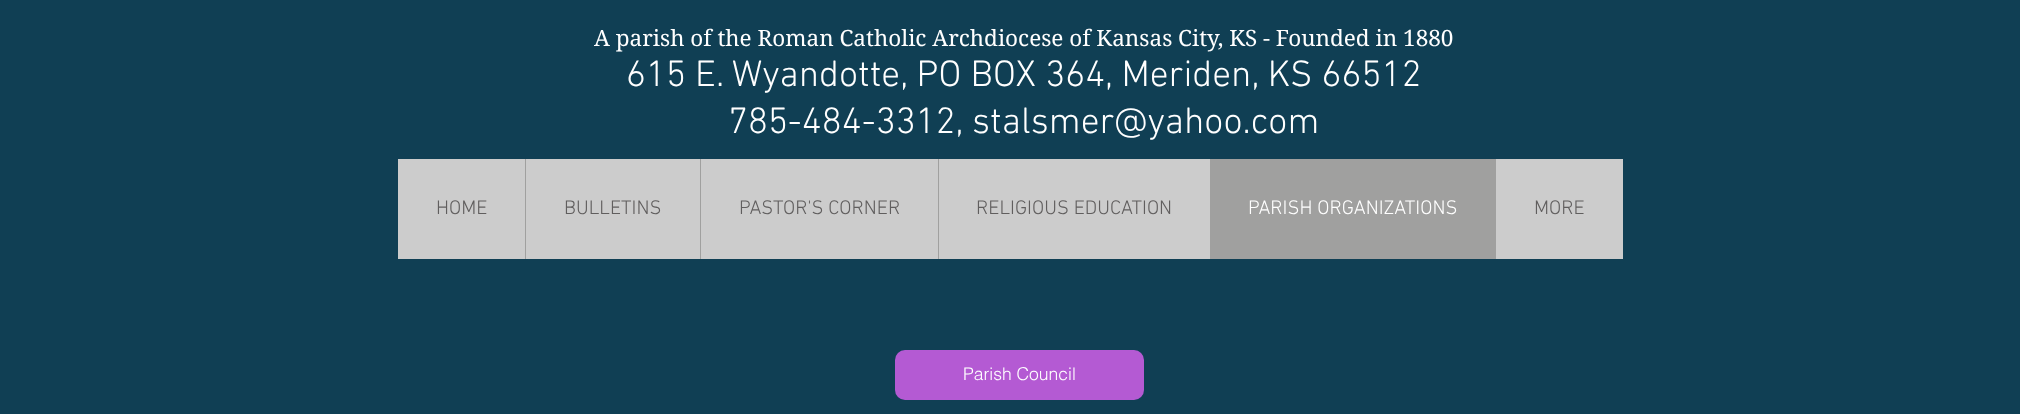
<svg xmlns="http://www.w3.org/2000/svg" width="2020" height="414">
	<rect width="100%" height="100%" fill="#103F54" />
	<text x="594" y="46" font-family="'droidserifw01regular'" font-size="22.5" fill="#FFFFFF">A parish of the Roman Catholic Archdiocese of Kansas City, KS - Founded in 1880</text>
	<g font-family="'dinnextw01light'" font-size="37.5" font-weight="300" fill="#FFFFFF">
		<text x="626" y="86">615 E. Wyandotte, PO BOX 364, Meriden, KS 66512</text>
		<text x="728" y="133">785-484-3312,</text>
		<text x="972" y="133">stalsmer@yahoo.com</text>
	</g>
	<rect x="398" y="159" width="1225" height="100" fill="#CCCCCC" />
	<text x="436" y="214" font-family="'dinnextw01light'" font-size="20" font-weight="300" fill="#605E5E">HOME</text>
	<rect x="525" y="159" width="1" height="100" fill="#A0A09F" />
	<text x="564" y="214" font-family="'dinnextw01light'" font-size="20" font-weight="300" fill="#605E5E">BULLETINS</text>
	<rect x="700" y="159" width="1" height="100" fill="#A0A09F" />
	<text x="739" y="214" font-family="'dinnextw01light'" font-size="20" font-weight="300" fill="#605E5E">PASTOR'S CORNER</text>
	<rect x="938" y="159" width="1" height="100" fill="#A0A09F" />
	<text x="976" y="214" font-family="'dinnextw01light'" font-size="20" font-weight="300" fill="#605E5E">RELIGIOUS EDUCATION</text>
	<rect x="1210" y="159" width="286" height="100" fill="#A0A09F" />
	<text x="1248" y="214" font-family="'dinnextw01light'" font-size="20" font-weight="300" fill="#FFFFFF">PARISH ORGANIZATIONS</text>
	<text x="1534" y="214" font-family="'dinnextw01light'" font-size="20" font-weight="300" fill="#605E5E">MORE</text>
	<rect x="895" y="350" width="249" height="50" rx="10" fill="#B45AD3" />
	<text x="963" y="380" font-family="helvetica" font-size="17.5" font-weight="300" fill="#FFFFFF">Parish Council</text>
</svg>
